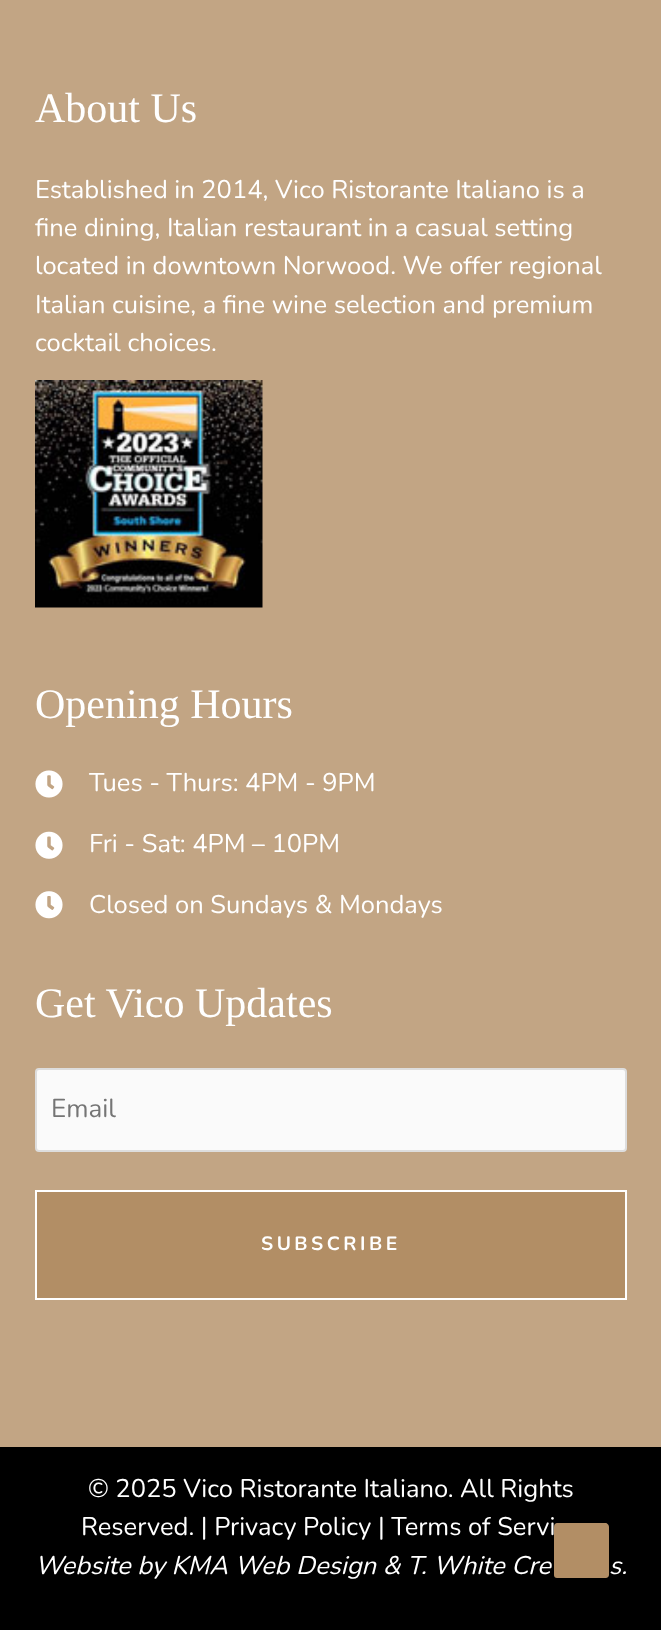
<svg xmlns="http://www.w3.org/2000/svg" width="661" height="1630">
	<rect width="100%" height="100%" fill="#C2A584" />
	<text x="35" y="122" font-family="Liberation Serif" font-size="42" fill="#FFFFFF">About Us</text>
	<g font-family="Nunito" font-size="25.5" fill="#FFFFFF">
		<text x="35" y="198">Established in 2014, Vico Ristorante Italiano is a</text>
		<text x="35" y="236">fine dining, Italian restaurant in a casual setting</text>
		<text x="35" y="274">located in downtown Norwood. We offer regional</text>
		<text x="35" y="313">Italian cuisine, a fine wine selection and premium</text>
		<text x="35" y="351">cocktail choices.</text>
	</g>
	<image x="35" y="380" width="228" height="228" href="assets/img1.png" />
	<text x="35" y="718" font-family="Liberation Serif" font-size="42" fill="#FFFFFF">Opening Hours</text>
	<image x="35" y="770" width="28" height="28" href="assets/img2.png" />
	<text x="89" y="791" font-family="Nunito" font-size="25.5" fill="#FFFFFF">Tues - Thurs: 4PM - 9PM</text>
	<image x="35" y="831" width="28" height="28" href="assets/img3.png" />
	<text x="89" y="852" font-family="Nunito" font-size="25.5" fill="#FFFFFF">Fri - Sat: 4PM – 10PM</text>
	<image x="35" y="891" width="28" height="28" href="assets/img4.png" />
	<text x="89" y="913" font-family="Nunito" font-size="25.5" fill="#FFFFFF">Closed on Sundays &amp; Mondays</text>
	<text x="35" y="1017" font-family="Liberation Serif" font-size="42" fill="#FFFFFF">Get Vico Updates</text>
	<rect x="36" y="1069" width="590" height="82" rx="3" fill="#FAFAFA" stroke="#DDDDDD" stroke-width="2" />
	<text x="51" y="1117" font-family="Nunito" font-size="26" fill="#757575">Email</text>
	<rect x="36" y="1191" width="590" height="108" fill="#B28E65" stroke="#FFFFFF" stroke-width="2" />
	<text x="261" y="1250" font-family="Nunito" font-size="19.25" font-weight="200" letter-spacing="3.5" fill="#FFFFFF">SUBSCRIBE</text>
	<rect x="0" y="1447" width="661" height="183" fill="#000000" />
	<g font-family="Nunito" font-size="25.5" fill="#FFFFFF">
		<text x="88" y="1497">© 2025 Vico Ristorante Italiano. All Rights</text>
		<text x="81" y="1535">Reserved. | Privacy Policy | Terms of Servi</text>
	</g>
	<g font-family="Nunito" font-size="25.5" font-style="italic" fill="#FFFFFF">
		<text x="35" y="1574">Website by KMA Web Design &amp; T. White Cre</text>
		<text x="609" y="1574">s.</text>
	</g>
	<path d="M606 1578H557C555 1578 554 1577 554 1575V1527C554 1525 555 1523 557 1523H606C607 1523 609 1525 609 1527V1575C609 1577 607 1578 606 1578Z" fill="#B28E65" />
</svg>
